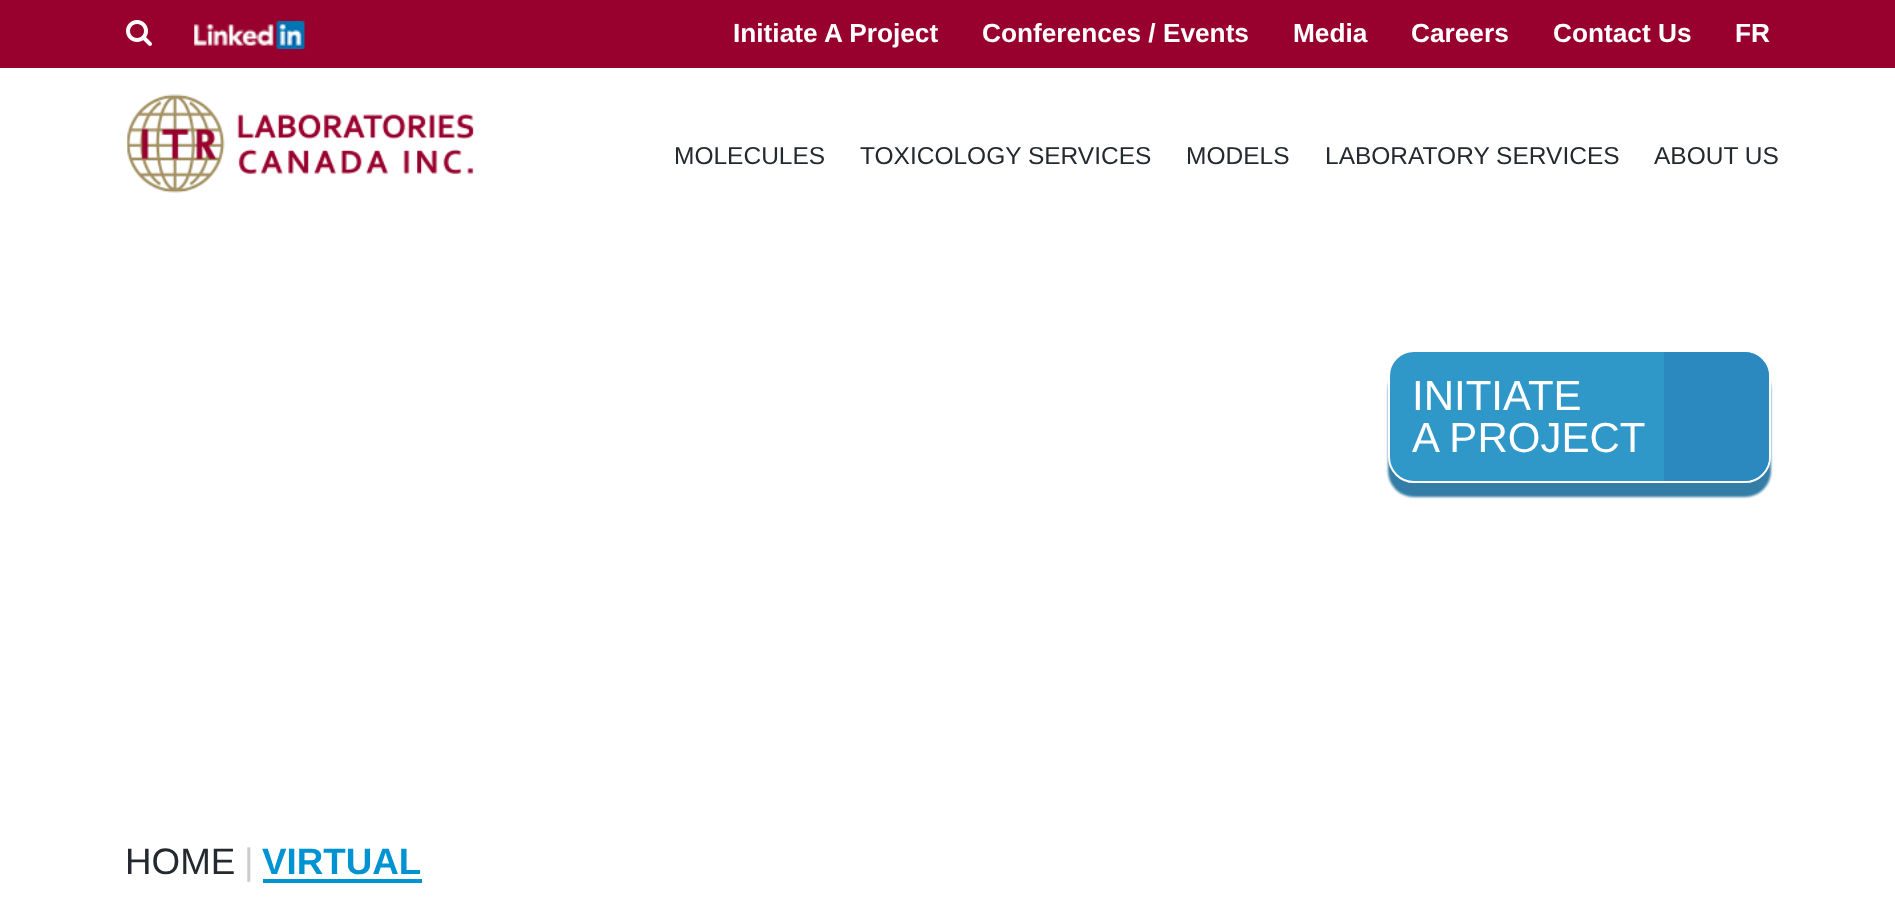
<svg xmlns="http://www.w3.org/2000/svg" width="1895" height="920">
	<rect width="100%" height="100%" fill="#FFFFFF" />
	<rect x="0" y="0" width="1895" height="68" fill="#98012E" />
	<image x="126" y="20" width="26" height="26" href="assets/img1.png" />
	<image x="194" y="21" width="111" height="28" href="assets/img2.png" />
	<g font-family="Liberation Sans" font-size="26.25" font-weight="700" fill="#FFFFFF">
		<text x="733" y="42">Initiate A Project</text>
		<text x="982" y="42">Conferences / Events</text>
		<text x="1293" y="42">Media</text>
		<text x="1411" y="42">Careers</text>
		<text x="1553" y="42">Contact Us</text>
		<text x="1735" y="42">FR</text>
	</g>
	<image x="126" y="94" width="348" height="99" href="assets/img3.png" />
	<g font-family="Liberation Sans" font-size="24.5" fill="#24292F">
		<text x="674" y="164">MOLECULES</text>
		<text x="860" y="164">TOXICOLOGY SERVICES</text>
		<text x="1186" y="164">MODELS</text>
		<text x="1325" y="164">LABORATORY SERVICES</text>
		<text x="1654" y="164">ABOUT US</text>
	</g>
	<rect x="1388" y="364" width="383" height="133" rx="26" fill="#337DA6" filter="blur(1px)" />
	<rect x="1389" y="351" width="381" height="131" rx="25" fill="#3097C9" stroke="#FFFFFF" stroke-width="2" />
	<text x="1412" y="410" font-family="Liberation Sans" font-size="42" fill="#FFFFFF">INITIATE</text>
	<path d="M1664 352H1744C1758 352 1769 363 1769 377V456C1769 470 1758 481 1744 481H1664Z" fill="#2C89BF" />
	<text x="1412" y="452" font-family="Liberation Sans" font-size="42" fill="#FFFFFF">A PROJECT</text>
	<text x="125" y="874" font-family="Liberation Sans" font-size="36.75" fill="#24292F">HOME</text>
	<text x="244" y="874" font-family="Liberation Sans" font-size="36.75" fill="#CCCCCC">|</text>
	<text x="262" y="874" font-family="Liberation Sans" font-size="36.75" font-weight="700" fill="#0093D1">VIRTUAL</text>
	<rect x="263" y="879" width="159" height="4" fill="#0093D1" />
</svg>
